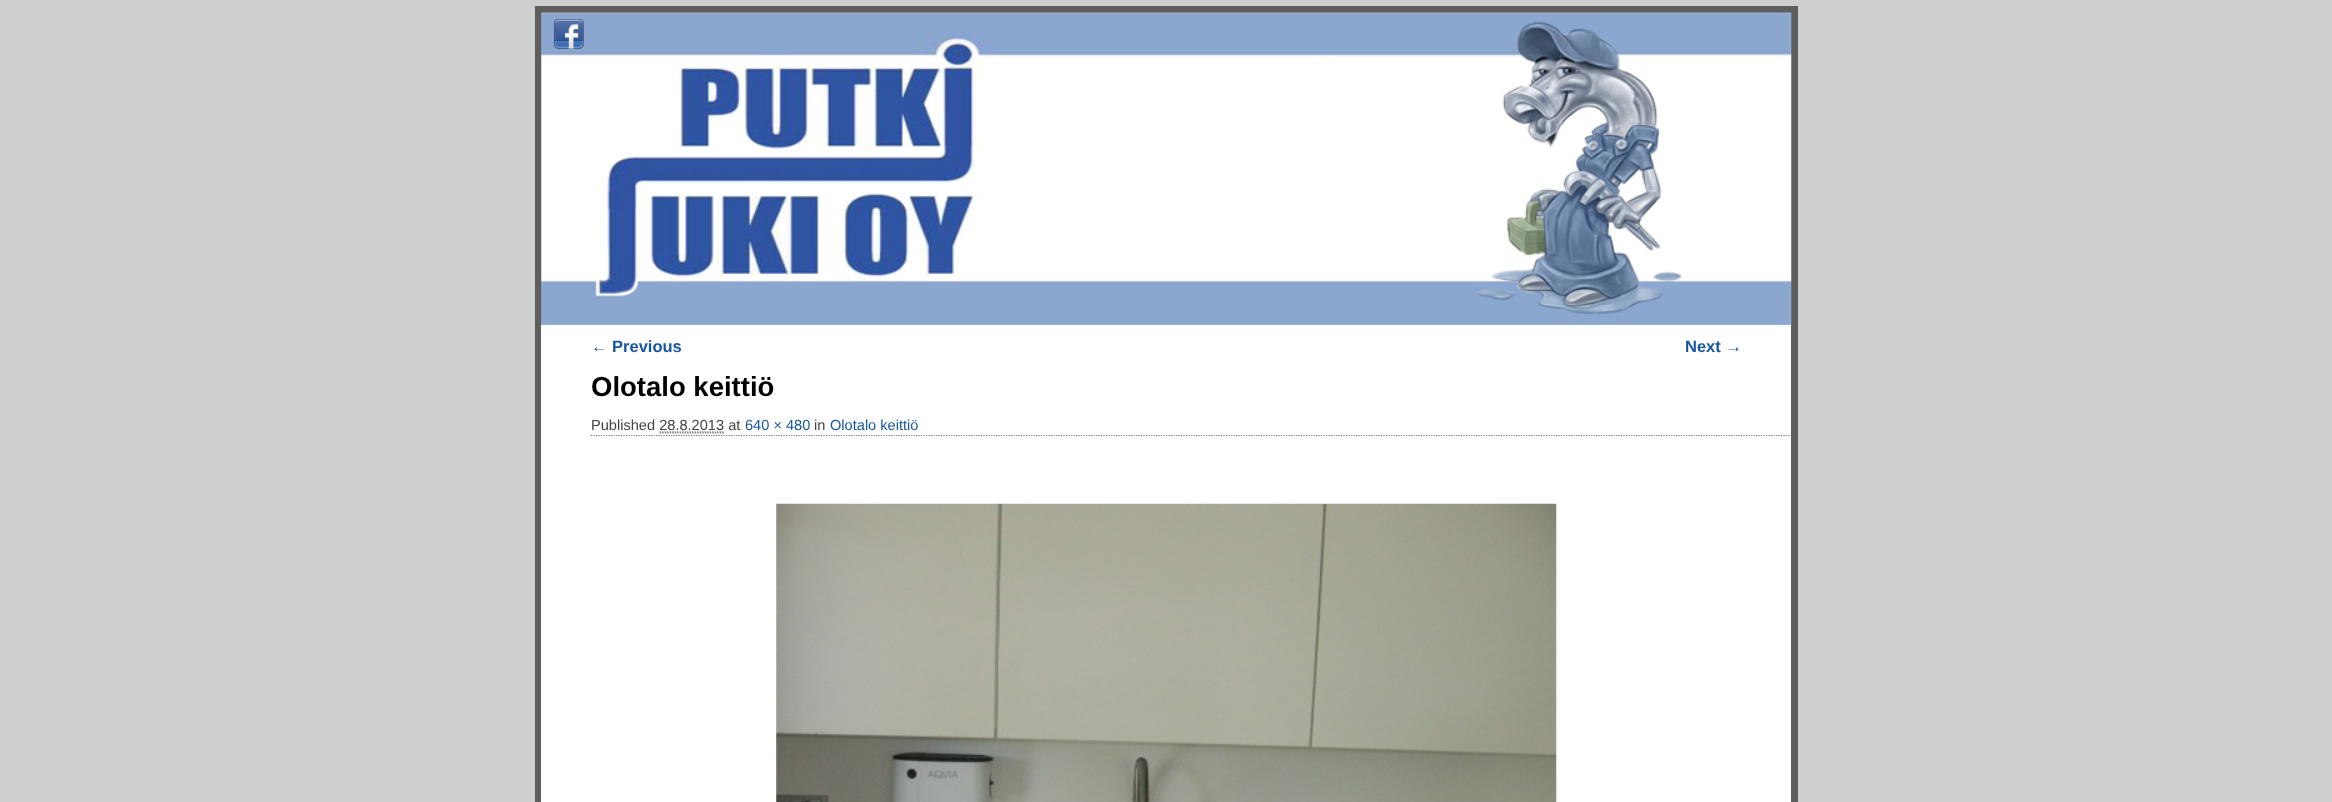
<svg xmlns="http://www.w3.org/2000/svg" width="2332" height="802">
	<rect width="100%" height="100%" fill="#CFCFCF" />
	<rect x="535" y="6" width="1263" height="796" fill="#5E5E5E" />
	<image x="541" y="12" width="1251" height="313" href="assets/img1.png" />
	<image x="553" y="18" width="31" height="31" href="assets/img2.png" />
	<rect x="541" y="325" width="1250" height="477" fill="#FFFFFF" />
	<g font-family="Liberation Sans" font-size="16.5" font-weight="700" fill="#16569E">
		<text x="591" y="352">← Previous</text>
		<text x="1685" y="352">Next →</text>
	</g>
	<text x="591" y="396" font-family="Liberation Sans" font-size="27.5" font-weight="700" fill="#000000">Olotalo keittiö</text>
	<path d="M591 435.5H1791" fill="none" stroke="#777777" stroke-width="1.2" stroke-dasharray="1.25 1.25" />
	<text x="591" y="430" font-family="Liberation Sans" font-size="14.6" fill="#444444">Published 28.8.2013 at</text>
	<text x="745" y="430" font-family="Liberation Sans" font-size="14.6" fill="#16569E">640 × 480</text>
	<text x="814" y="430" font-family="Liberation Sans" font-size="14.6" fill="#444444">in</text>
	<text x="830" y="430" font-family="Liberation Sans" font-size="14.6" fill="#16569E">Olotalo keittiö</text>
	<path d="M660 433H725" fill="none" stroke="#666666" stroke-width="1.2" stroke-dasharray="1.25 1.25" />
	<path d="M659.5 432H724.5" fill="none" stroke="#444444" stroke-width="1.2" stroke-dasharray="1.25 1.25" />
	<image x="776" y="503" width="781" height="299" href="assets/img3.png" />
</svg>
